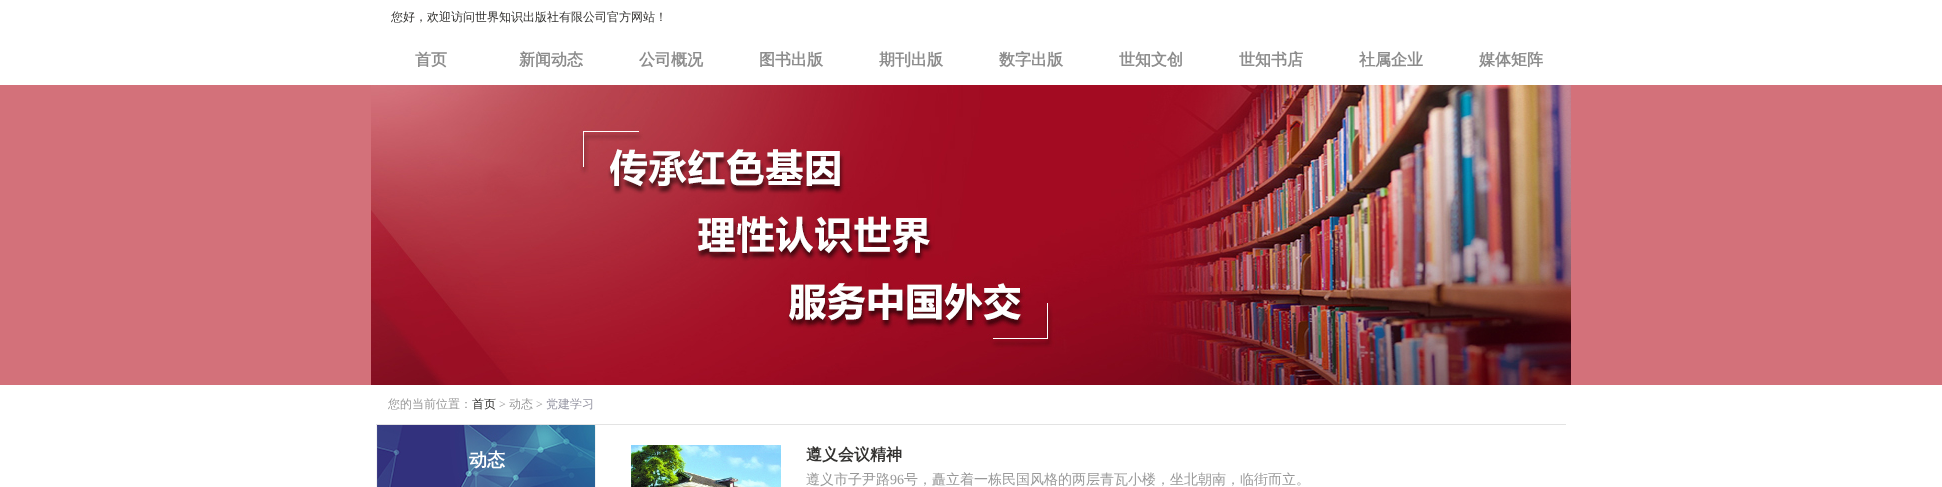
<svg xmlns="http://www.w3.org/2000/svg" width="1942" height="487">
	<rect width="100%" height="100%" fill="#FFFFFF" />
	<text x="391" y="21" font-family="WenQuanYi Zen Hei" font-size="12" font-weight="500" fill="#333230">您好，欢迎访问世界知识出版社有限公司官方网站！</text>
	<g font-family="WenQuanYi Zen Hei" font-size="16" font-weight="700" fill="#8D8D8D">
		<text x="415" y="65">首页</text>
		<text x="519" y="65">新闻动态</text>
		<text x="639" y="65">公司概况</text>
		<text x="759" y="65">图书出版</text>
		<text x="879" y="65">期刊出版</text>
		<text x="999" y="65">数字出版</text>
		<text x="1119" y="65">世知文创</text>
		<text x="1239" y="65">世知书店</text>
		<text x="1359" y="65">社属企业</text>
		<text x="1479" y="65">媒体矩阵</text>
	</g>
	<rect x="0" y="85" width="1942" height="300" fill="#D3717A" />
	<image x="371" y="85" width="1200" height="300" href="assets/img1.png" />
	<rect x="376" y="424" width="1190" height="1" fill="#E3E3E3" />
	<text x="388" y="408" font-family="WenQuanYi Zen Hei" font-size="12" font-weight="500" fill="#999999">您的当前位置：</text>
	<text x="472" y="408" font-family="WenQuanYi Zen Hei" font-size="12" font-weight="500" fill="#333230">首页</text>
	<text x="499" y="408" font-family="Liberation Serif" font-size="12" fill="#999999">&gt;</text>
	<text x="509" y="408" font-family="WenQuanYi Zen Hei" font-size="12" font-weight="500" fill="#999999">动态</text>
	<text x="536" y="408" font-family="Liberation Serif" font-size="12" fill="#999999">&gt;</text>
	<text x="546" y="408" font-family="WenQuanYi Zen Hei" font-size="12" font-weight="500" fill="#9999A6">党建学习</text>
	<image x="377" y="425" width="218" height="62" href="assets/img2.png" />
	<rect x="595" y="425" width="1" height="62" fill="#F2F2F2" />
	<rect x="376" y="425" width="1" height="62" fill="#F2F2F2" />
	<text x="469" y="466" font-family="WenQuanYi Zen Hei" font-size="18" font-weight="700" fill="#FFFFFF">动态</text>
	<image x="631" y="445" width="150" height="42" href="assets/img3.png" />
	<text x="806" y="460" font-family="WenQuanYi Zen Hei" font-size="16" font-weight="700" fill="#333230">遵义会议精神</text>
	<text x="806" y="484" font-family="WenQuanYi Zen Hei" font-size="14" font-weight="500" fill="#999999">遵义市子尹路</text>
	<text x="890" y="484" font-family="Liberation Serif" font-size="14" fill="#999999">96</text>
	<text x="904" y="484" font-family="WenQuanYi Zen Hei" font-size="14" font-weight="500" fill="#999999">号，矗立着一栋民国风格的两层青瓦小楼，坐北朝南，临街而立。</text>
</svg>
